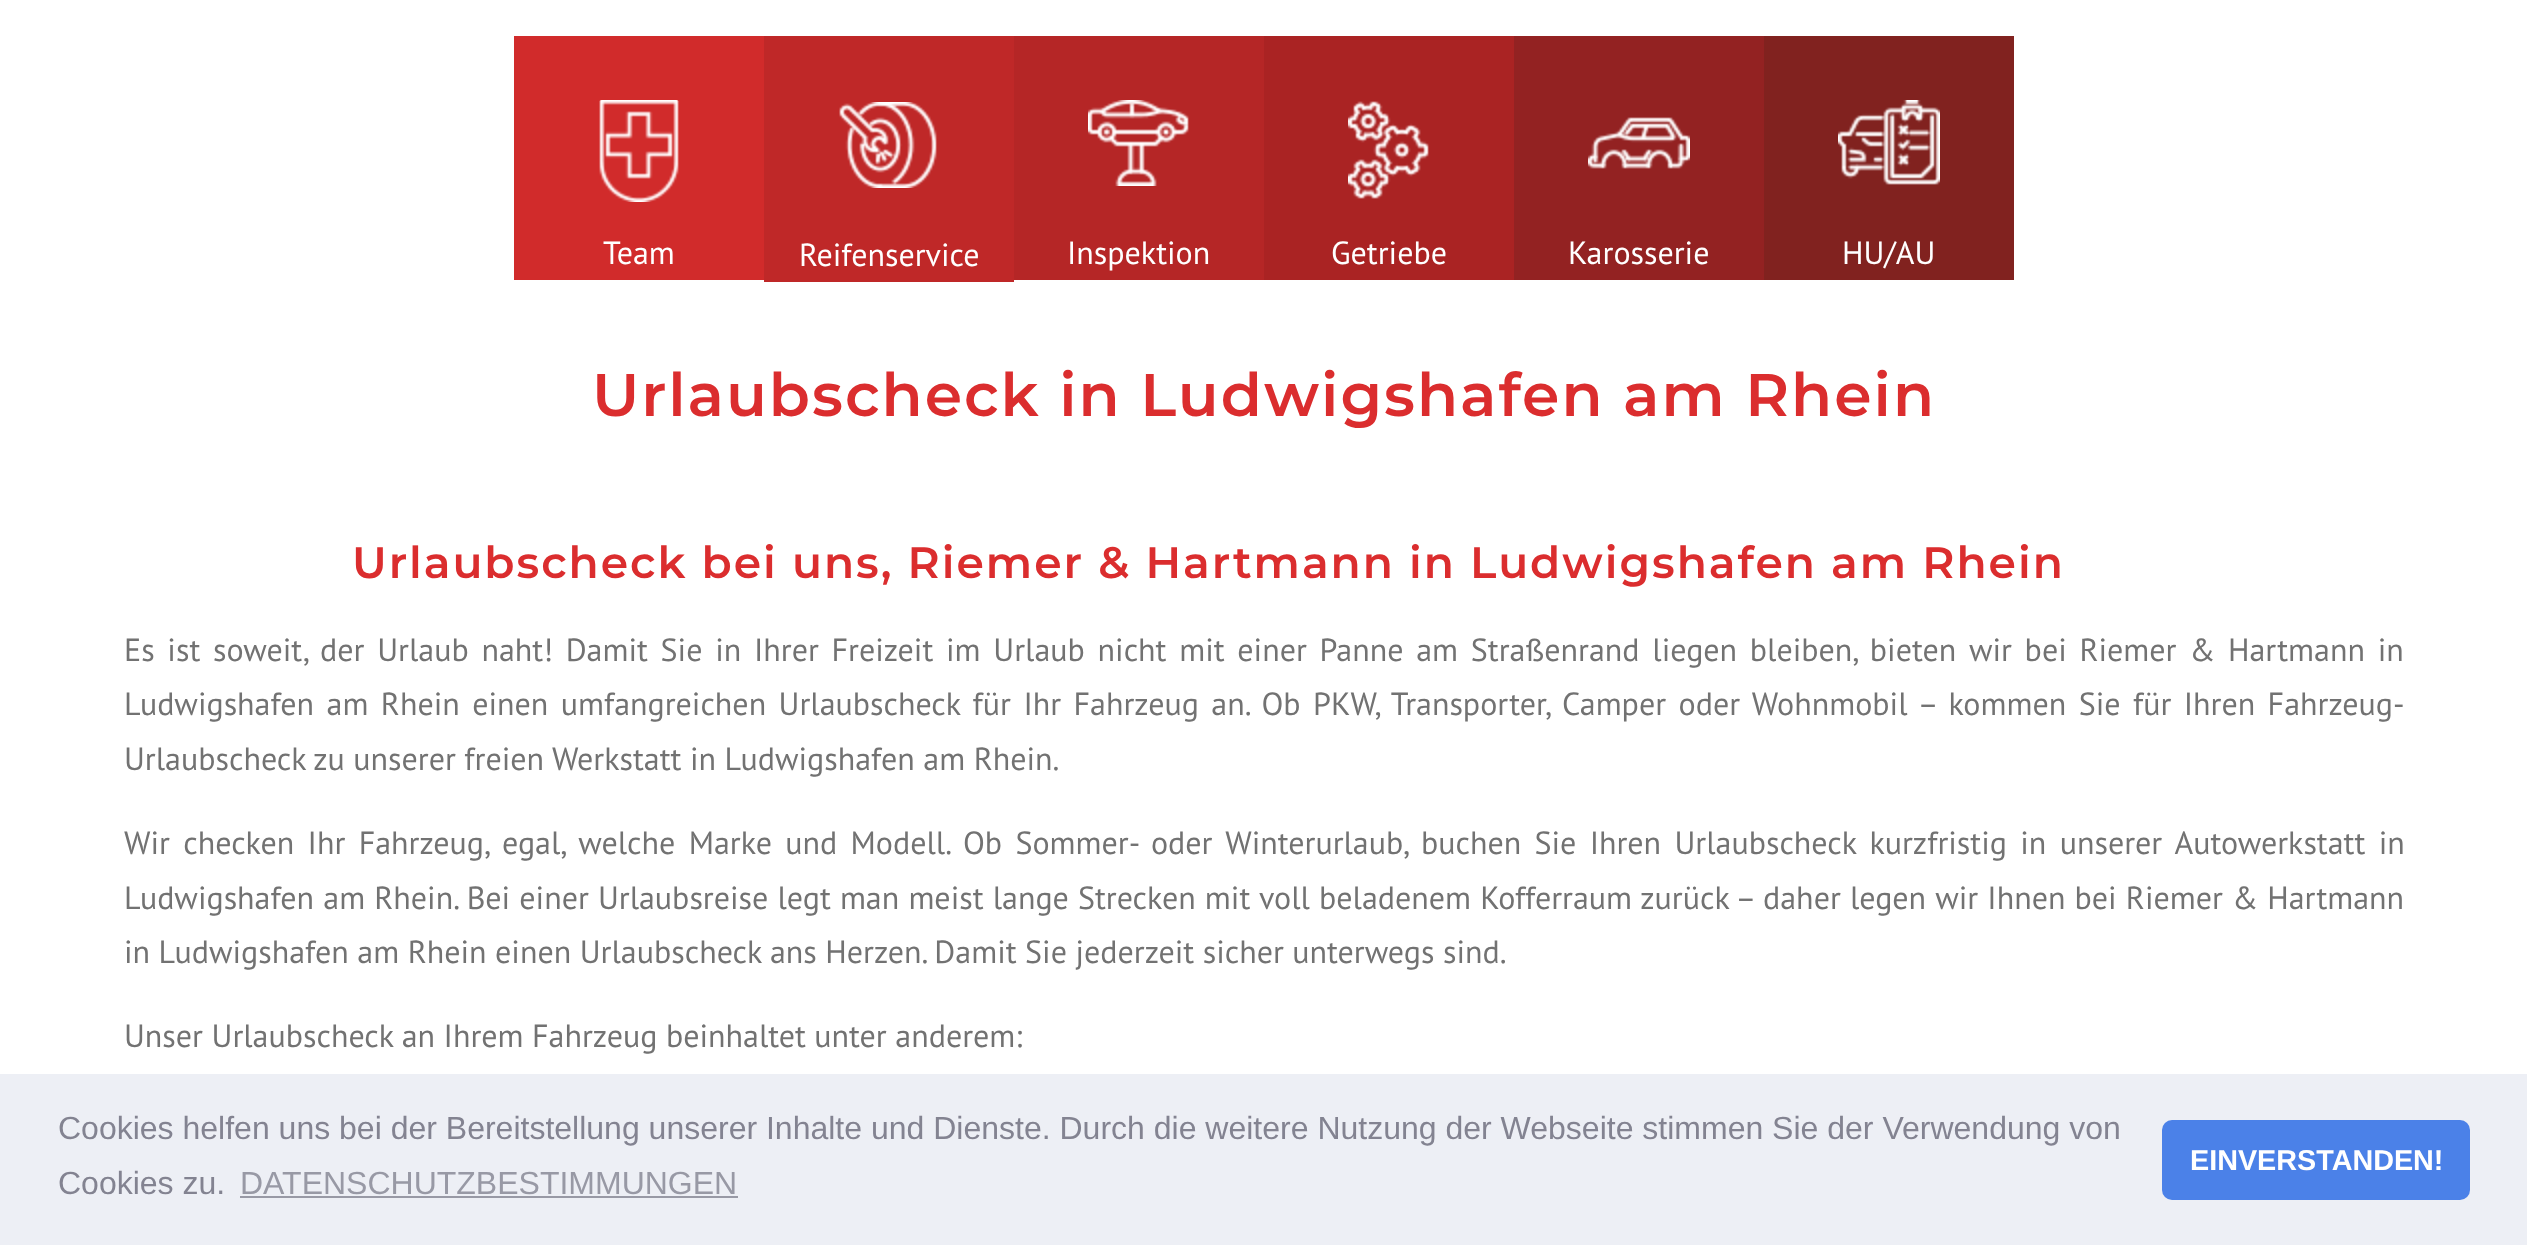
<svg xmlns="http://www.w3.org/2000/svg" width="2527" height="1245">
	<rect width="100%" height="100%" fill="#FFFFFF" />
	<rect x="514" y="36" width="250" height="244" fill="#D12B2B" />
	<image x="599" y="100" width="80" height="102" href="assets/img1.png" />
	<text x="603" y="264" font-family="PT Sans" font-size="32" fill="#FFFFFF">Team</text>
	<rect x="764" y="36" width="250" height="246" fill="#BF2828" />
	<image x="839" y="102" width="98" height="86" href="assets/img2.png" />
	<text x="799" y="266" font-family="PT Sans" font-size="32" fill="#FFFFFF">Reifenservice</text>
	<rect x="1014" y="36" width="250" height="244" fill="#B52626" />
	<image x="1088" y="100" width="101" height="86" href="assets/img3.png" />
	<text x="1067" y="264" font-family="PT Sans" font-size="32" fill="#FFFFFF">Inspektion</text>
	<rect x="1264" y="36" width="250" height="244" fill="#AA2323" />
	<image x="1348" y="101" width="81" height="98" href="assets/img4.png" />
	<text x="1331" y="264" font-family="PT Sans" font-size="32" fill="#FFFFFF">Getriebe</text>
	<rect x="1514" y="36" width="250" height="244" fill="#932222" />
	<image x="1588" y="117" width="102" height="52" href="assets/img5.png" />
	<text x="1568" y="264" font-family="PT Sans" font-size="32" fill="#FFFFFF">Karosserie</text>
	<rect x="1764" y="36" width="250" height="244" fill="#81221F" />
	<image x="1838" y="100" width="102" height="85" href="assets/img6.png" />
	<text x="1842" y="264" font-family="PT Sans" font-size="32" fill="#FFFFFF">HU/AU</text>
	<text x="592" y="416" font-family="Montserrat" font-size="60" font-weight="600" letter-spacing="2" fill="#DB2D2E">Urlaubscheck in Ludwigshafen am Rhein</text>
	<text x="352" y="578" font-family="Montserrat" font-size="44" font-weight="600" letter-spacing="2" fill="#DB2D2E">Urlaubscheck bei uns, Riemer &amp; Hartmann in Ludwigshafen am Rhein</text>
	<g font-family="PT Sans" font-size="32" fill="#727272">
		<text x="124" y="661" word-spacing="4.2">Es ist soweit, der Urlaub naht! Damit Sie in Ihrer Freizeit im Urlaub nicht mit einer Panne am Straßenrand liegen bleiben, bieten wir bei Riemer &amp; Hartmann in</text>
		<text x="124" y="715" word-spacing="3.9">Ludwigshafen am Rhein einen umfangreichen Urlaubscheck für Ihr Fahrzeug an. Ob PKW, Transporter, Camper oder Wohnmobil – kommen Sie für Ihren Fahrzeug-</text>
		<text x="124" y="770">Urlaubscheck zu unserer freien Werkstatt in Ludwigshafen am Rhein.</text>
		<text x="124" y="854" word-spacing="4.8">Wir checken Ihr Fahrzeug, egal, welche Marke und Modell. Ob Sommer- oder Winterurlaub, buchen Sie Ihren Urlaubscheck kurzfristig in unserer Autowerkstatt in</text>
		<text x="124" y="909" word-spacing="0.6">Ludwigshafen am Rhein. Bei einer Urlaubsreise legt man meist lange Strecken mit voll beladenem Kofferraum zurück – daher legen wir Ihnen bei Riemer &amp; Hartmann</text>
		<text x="124" y="963">in Ludwigshafen am Rhein einen Urlaubscheck ans Herzen. Damit Sie jederzeit sicher unterwegs sind.</text>
		<text x="124" y="1047">Unser Urlaubscheck an Ihrem Fahrzeug beinhaltet unter anderem:</text>
	</g>
	<rect x="0" y="1074" width="2527" height="171" fill="#EDEFF5" />
	<g font-family="Liberation Sans" font-size="32" fill="#838391">
		<text x="58" y="1139">Cookies helfen uns bei der Bereitstellung unserer Inhalte und Dienste. Durch die weitere Nutzung der Webseite stimmen Sie der Verwendung von</text>
		<text x="58" y="1194">Cookies zu.</text>
	</g>
	<text x="240" y="1194" font-family="Liberation Sans" font-size="32" fill="#9899A5">DATENSCHUTZBESTIMMUNGEN</text>
	<rect x="240" y="1196" width="498" height="2" fill="#9899A5" />
	<rect x="2162" y="1120" width="308" height="80" rx="10" fill="#4B81E8" />
	<text x="2190" y="1170" font-family="Liberation Sans" font-size="28.75" font-weight="700" fill="#FFFFFF">EINVERSTANDEN!</text>
</svg>
